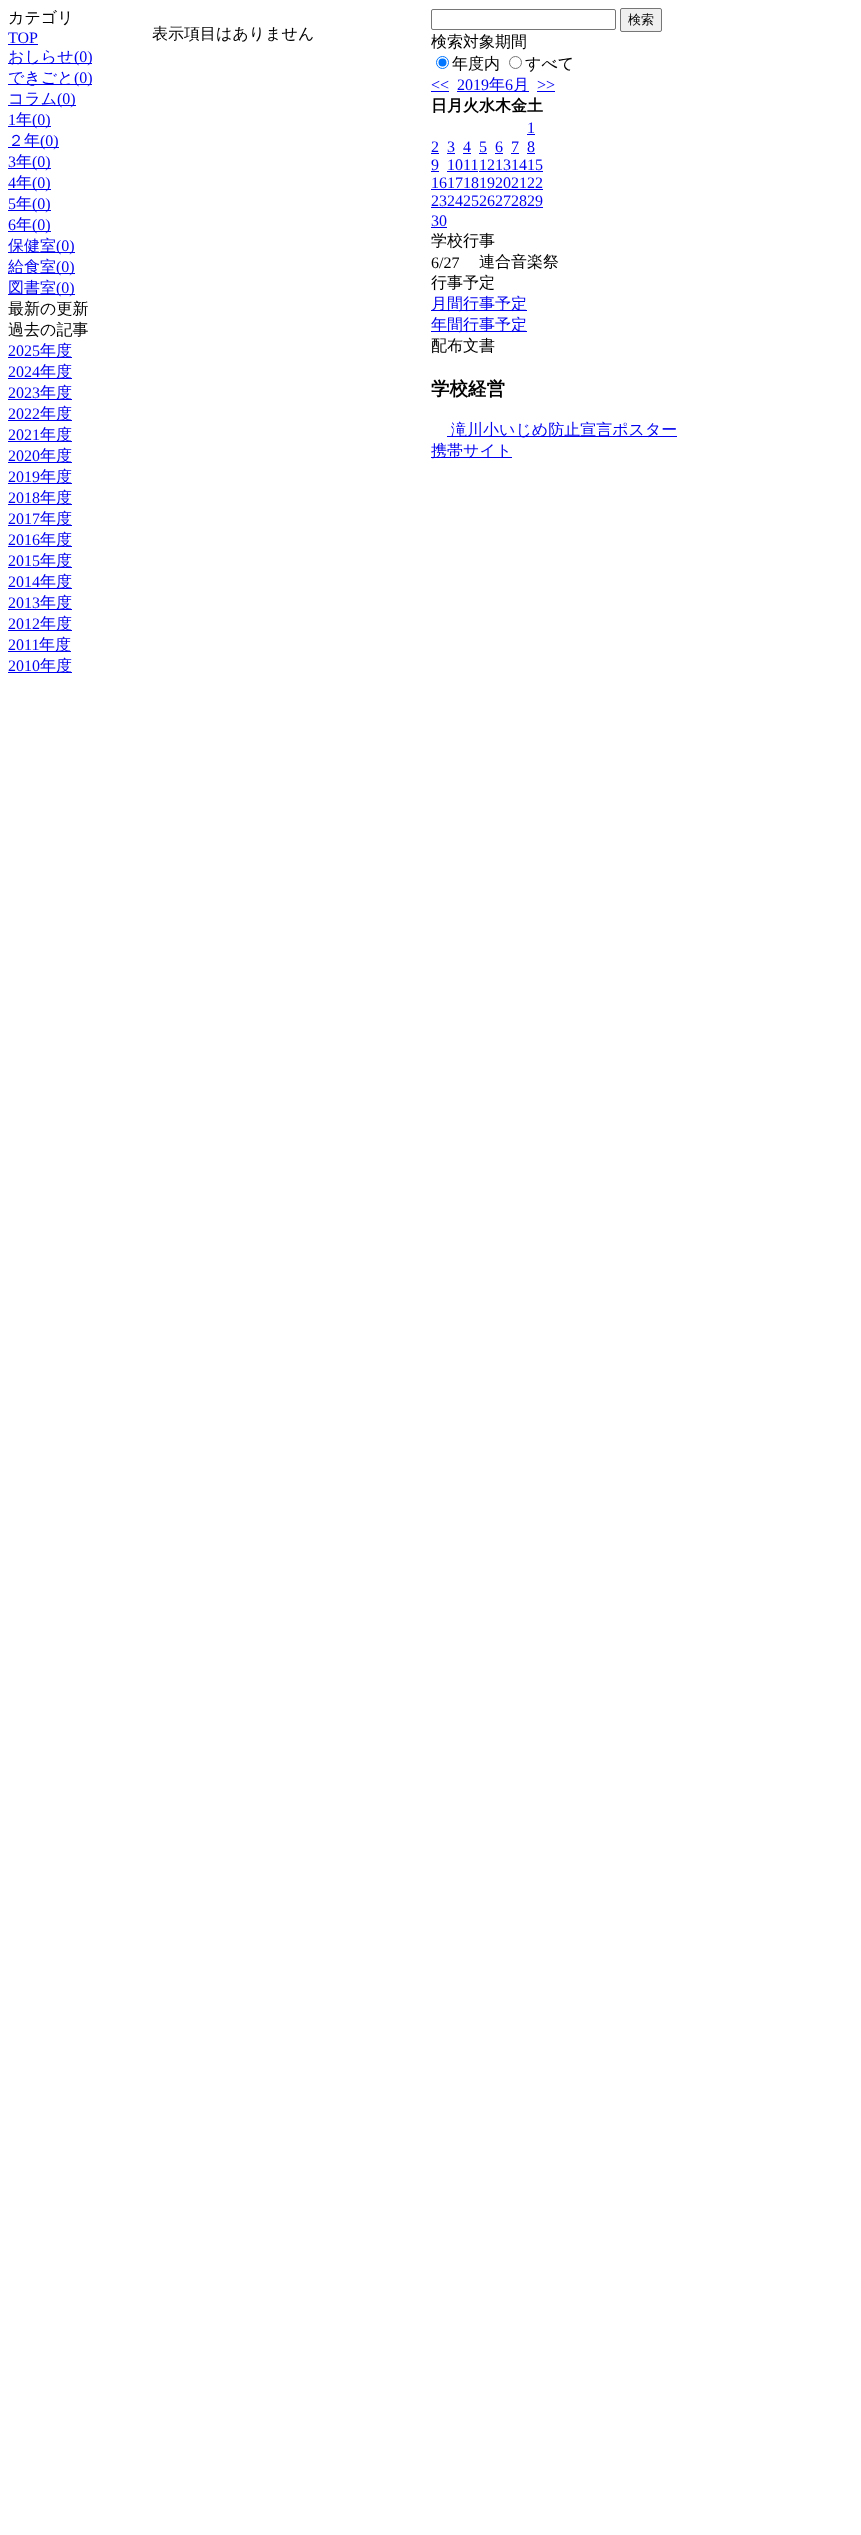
<svg xmlns="http://www.w3.org/2000/svg" width="861" height="2535">
	<rect width="100%" height="100%" fill="#FFFFFF" />
	<text x="8" y="23" font-family="WenQuanYi Zen Hei" font-size="16" font-weight="500" fill="#000000">カテゴリ</text>
	<text x="8" y="43" font-family="Liberation Serif" font-size="16" fill="#0000EE">TOP</text>
	<rect x="8" y="44" width="30" height="1" fill="#0000EE" />
	<rect x="8" y="63" width="84" height="1" fill="#0000EE" />
	<text x="8" y="62" font-family="WenQuanYi Zen Hei" font-size="16" font-weight="500" fill="#0000EE">おしらせ</text>
	<text x="74" y="62" font-family="Liberation Serif" font-size="16" fill="#0000EE">(0)</text>
	<rect x="8" y="84" width="84" height="1" fill="#0000EE" />
	<text x="8" y="83" font-family="WenQuanYi Zen Hei" font-size="16" font-weight="500" fill="#0000EE">できごと</text>
	<text x="74" y="83" font-family="Liberation Serif" font-size="16" fill="#0000EE">(0)</text>
	<rect x="8" y="105" width="68" height="1" fill="#0000EE" />
	<text x="8" y="104" font-family="WenQuanYi Zen Hei" font-size="16" font-weight="500" fill="#0000EE">コラム</text>
	<g font-family="Liberation Serif" font-size="16" fill="#0000EE">
		<text x="57" y="104">(0)</text>
		<text x="8" y="125">1</text>
	</g>
	<rect x="8" y="126" width="43" height="1" fill="#0000EE" />
	<text x="16" y="125" font-family="WenQuanYi Zen Hei" font-size="16" font-weight="500" fill="#0000EE">年</text>
	<text x="32" y="125" font-family="Liberation Serif" font-size="16" fill="#0000EE">(0)</text>
	<rect x="8" y="147" width="51" height="1" fill="#0000EE" />
	<text x="8" y="146" font-family="WenQuanYi Zen Hei" font-size="16" font-weight="500" fill="#0000EE">２年</text>
	<g font-family="Liberation Serif" font-size="16" fill="#0000EE">
		<text x="40" y="146">(0)</text>
		<text x="8" y="167">3</text>
	</g>
	<rect x="8" y="168" width="43" height="1" fill="#0000EE" />
	<text x="16" y="167" font-family="WenQuanYi Zen Hei" font-size="16" font-weight="500" fill="#0000EE">年</text>
	<g font-family="Liberation Serif" font-size="16" fill="#0000EE">
		<text x="32" y="167">(0)</text>
		<text x="8" y="188">4</text>
	</g>
	<rect x="8" y="189" width="43" height="1" fill="#0000EE" />
	<text x="16" y="188" font-family="WenQuanYi Zen Hei" font-size="16" font-weight="500" fill="#0000EE">年</text>
	<g font-family="Liberation Serif" font-size="16" fill="#0000EE">
		<text x="32" y="188">(0)</text>
		<text x="8" y="209">5</text>
	</g>
	<rect x="8" y="210" width="43" height="1" fill="#0000EE" />
	<text x="16" y="209" font-family="WenQuanYi Zen Hei" font-size="16" font-weight="500" fill="#0000EE">年</text>
	<g font-family="Liberation Serif" font-size="16" fill="#0000EE">
		<text x="32" y="209">(0)</text>
		<text x="8" y="230">6</text>
	</g>
	<rect x="8" y="231" width="43" height="1" fill="#0000EE" />
	<text x="16" y="230" font-family="WenQuanYi Zen Hei" font-size="16" font-weight="500" fill="#0000EE">年</text>
	<text x="32" y="230" font-family="Liberation Serif" font-size="16" fill="#0000EE">(0)</text>
	<rect x="8" y="252" width="67" height="1" fill="#0000EE" />
	<text x="8" y="251" font-family="WenQuanYi Zen Hei" font-size="16" font-weight="500" fill="#0000EE">保健室</text>
	<text x="56" y="251" font-family="Liberation Serif" font-size="16" fill="#0000EE">(0)</text>
	<rect x="8" y="273" width="67" height="1" fill="#0000EE" />
	<text x="8" y="272" font-family="WenQuanYi Zen Hei" font-size="16" font-weight="500" fill="#0000EE">給食室</text>
	<text x="56" y="272" font-family="Liberation Serif" font-size="16" fill="#0000EE">(0)</text>
	<rect x="8" y="294" width="67" height="1" fill="#0000EE" />
	<text x="8" y="293" font-family="WenQuanYi Zen Hei" font-size="16" font-weight="500" fill="#0000EE">図書室</text>
	<text x="56" y="293" font-family="Liberation Serif" font-size="16" fill="#0000EE">(0)</text>
	<g font-family="WenQuanYi Zen Hei" font-size="16" font-weight="500" fill="#000000">
		<text x="8" y="314">最新の更新</text>
		<text x="8" y="335">過去の記事</text>
	</g>
	<text x="8" y="356" font-family="Liberation Serif" font-size="16" fill="#0000EE">2025</text>
	<rect x="8" y="357" width="64" height="1" fill="#0000EE" />
	<text x="40" y="356" font-family="WenQuanYi Zen Hei" font-size="16" font-weight="500" fill="#0000EE">年度</text>
	<text x="8" y="377" font-family="Liberation Serif" font-size="16" fill="#0000EE">2024</text>
	<rect x="8" y="378" width="64" height="1" fill="#0000EE" />
	<text x="40" y="377" font-family="WenQuanYi Zen Hei" font-size="16" font-weight="500" fill="#0000EE">年度</text>
	<text x="8" y="398" font-family="Liberation Serif" font-size="16" fill="#0000EE">2023</text>
	<rect x="8" y="399" width="64" height="1" fill="#0000EE" />
	<text x="40" y="398" font-family="WenQuanYi Zen Hei" font-size="16" font-weight="500" fill="#0000EE">年度</text>
	<text x="8" y="419" font-family="Liberation Serif" font-size="16" fill="#0000EE">2022</text>
	<rect x="8" y="420" width="64" height="1" fill="#0000EE" />
	<text x="40" y="419" font-family="WenQuanYi Zen Hei" font-size="16" font-weight="500" fill="#0000EE">年度</text>
	<text x="8" y="440" font-family="Liberation Serif" font-size="16" fill="#0000EE">2021</text>
	<rect x="8" y="441" width="64" height="1" fill="#0000EE" />
	<text x="40" y="440" font-family="WenQuanYi Zen Hei" font-size="16" font-weight="500" fill="#0000EE">年度</text>
	<text x="8" y="461" font-family="Liberation Serif" font-size="16" fill="#0000EE">2020</text>
	<rect x="8" y="462" width="64" height="1" fill="#0000EE" />
	<text x="40" y="461" font-family="WenQuanYi Zen Hei" font-size="16" font-weight="500" fill="#0000EE">年度</text>
	<text x="8" y="482" font-family="Liberation Serif" font-size="16" fill="#0000EE">2019</text>
	<rect x="8" y="483" width="64" height="1" fill="#0000EE" />
	<text x="40" y="482" font-family="WenQuanYi Zen Hei" font-size="16" font-weight="500" fill="#0000EE">年度</text>
	<text x="8" y="503" font-family="Liberation Serif" font-size="16" fill="#0000EE">2018</text>
	<rect x="8" y="504" width="64" height="1" fill="#0000EE" />
	<text x="40" y="503" font-family="WenQuanYi Zen Hei" font-size="16" font-weight="500" fill="#0000EE">年度</text>
	<text x="8" y="524" font-family="Liberation Serif" font-size="16" fill="#0000EE">2017</text>
	<rect x="8" y="525" width="64" height="1" fill="#0000EE" />
	<text x="40" y="524" font-family="WenQuanYi Zen Hei" font-size="16" font-weight="500" fill="#0000EE">年度</text>
	<text x="8" y="545" font-family="Liberation Serif" font-size="16" fill="#0000EE">2016</text>
	<rect x="8" y="546" width="64" height="1" fill="#0000EE" />
	<text x="40" y="545" font-family="WenQuanYi Zen Hei" font-size="16" font-weight="500" fill="#0000EE">年度</text>
	<text x="8" y="566" font-family="Liberation Serif" font-size="16" fill="#0000EE">2015</text>
	<rect x="8" y="567" width="64" height="1" fill="#0000EE" />
	<text x="40" y="566" font-family="WenQuanYi Zen Hei" font-size="16" font-weight="500" fill="#0000EE">年度</text>
	<text x="8" y="587" font-family="Liberation Serif" font-size="16" fill="#0000EE">2014</text>
	<rect x="8" y="588" width="64" height="1" fill="#0000EE" />
	<text x="40" y="587" font-family="WenQuanYi Zen Hei" font-size="16" font-weight="500" fill="#0000EE">年度</text>
	<text x="8" y="608" font-family="Liberation Serif" font-size="16" fill="#0000EE">2013</text>
	<rect x="8" y="609" width="64" height="1" fill="#0000EE" />
	<text x="40" y="608" font-family="WenQuanYi Zen Hei" font-size="16" font-weight="500" fill="#0000EE">年度</text>
	<text x="8" y="629" font-family="Liberation Serif" font-size="16" fill="#0000EE">2012</text>
	<rect x="8" y="630" width="64" height="1" fill="#0000EE" />
	<text x="40" y="629" font-family="WenQuanYi Zen Hei" font-size="16" font-weight="500" fill="#0000EE">年度</text>
	<text x="8" y="650" font-family="Liberation Serif" font-size="16" fill="#0000EE">2011</text>
	<rect x="8" y="651" width="63" height="1" fill="#0000EE" />
	<text x="39" y="650" font-family="WenQuanYi Zen Hei" font-size="16" font-weight="500" fill="#0000EE">年度</text>
	<text x="8" y="671" font-family="Liberation Serif" font-size="16" fill="#0000EE">2010</text>
	<rect x="8" y="672" width="64" height="1" fill="#0000EE" />
	<text x="40" y="671" font-family="WenQuanYi Zen Hei" font-size="16" font-weight="500" fill="#0000EE">年度</text>
	<text x="152" y="39" font-family="WenQuanYi Zen Hei" font-size="16" font-weight="500" fill="#000000">表示項目はありません</text>
	<rect x="431.5" y="9.5" width="184" height="20" rx="1.5" fill="none" stroke="#767676" />
	<rect x="620.5" y="8.5" width="41" height="23" rx="1.5" fill="#EFEFEF" stroke="#767676" />
	<text x="628" y="24" font-family="WenQuanYi Zen Hei" font-size="13" font-weight="500" fill="#000000">検索</text>
	<text x="431" y="47" font-family="WenQuanYi Zen Hei" font-size="16" font-weight="500" fill="#000000">検索対象期間</text>
	<circle cx="442.5" cy="62.5" r="6" fill="none" stroke="#0075FF" />
	<circle cx="442.5" cy="62.5" r="4" fill="#0075FF" />
	<text x="452" y="69" font-family="WenQuanYi Zen Hei" font-size="16" font-weight="500" fill="#000000">年度内</text>
	<circle cx="515.5" cy="62.5" r="6" fill="none" stroke="#767676" />
	<text x="525" y="69" font-family="WenQuanYi Zen Hei" font-size="16" font-weight="500" fill="#000000">すべて</text>
	<text x="431" y="90" font-family="Liberation Serif" font-size="16" fill="#0000EE">&lt;&lt;</text>
	<rect x="431" y="91" width="18" height="1" fill="#0000EE" />
	<text x="457" y="90" font-family="Liberation Serif" font-size="16" fill="#0000EE">2019</text>
	<rect x="457" y="91" width="72" height="1" fill="#0000EE" />
	<text x="489" y="90" font-family="WenQuanYi Zen Hei" font-size="16" font-weight="500" fill="#0000EE">年</text>
	<text x="505" y="90" font-family="Liberation Serif" font-size="16" fill="#0000EE">6</text>
	<text x="513" y="90" font-family="WenQuanYi Zen Hei" font-size="16" font-weight="500" fill="#0000EE">月</text>
	<text x="537" y="90" font-family="Liberation Serif" font-size="16" fill="#0000EE">&gt;&gt;</text>
	<rect x="537" y="91" width="18" height="1" fill="#0000EE" />
	<text x="431" y="111" font-family="WenQuanYi Zen Hei" font-size="16" font-weight="700" fill="#000000">日月火水木金土</text>
	<text x="527" y="133" font-family="Liberation Serif" font-size="16" fill="#0000EE">1</text>
	<rect x="527" y="134" width="8" height="1" fill="#0000EE" />
	<text x="431" y="152" font-family="Liberation Serif" font-size="16" fill="#0000EE">2</text>
	<rect x="431" y="153" width="8" height="1" fill="#0000EE" />
	<text x="447" y="152" font-family="Liberation Serif" font-size="16" fill="#0000EE">3</text>
	<rect x="447" y="153" width="8" height="1" fill="#0000EE" />
	<text x="463" y="152" font-family="Liberation Serif" font-size="16" fill="#0000EE">4</text>
	<rect x="463" y="153" width="8" height="1" fill="#0000EE" />
	<text x="479" y="152" font-family="Liberation Serif" font-size="16" fill="#0000EE">5</text>
	<rect x="479" y="153" width="8" height="1" fill="#0000EE" />
	<text x="495" y="152" font-family="Liberation Serif" font-size="16" fill="#0000EE">6</text>
	<rect x="495" y="153" width="8" height="1" fill="#0000EE" />
	<text x="511" y="152" font-family="Liberation Serif" font-size="16" fill="#0000EE">7</text>
	<rect x="511" y="153" width="8" height="1" fill="#0000EE" />
	<text x="527" y="152" font-family="Liberation Serif" font-size="16" fill="#0000EE">8</text>
	<rect x="527" y="153" width="8" height="1" fill="#0000EE" />
	<text x="431" y="170" font-family="Liberation Serif" font-size="16" fill="#0000EE">9</text>
	<rect x="431" y="171" width="8" height="1" fill="#0000EE" />
	<text x="447" y="170" font-family="Liberation Serif" font-size="16" fill="#0000EE">1011</text>
	<rect x="447" y="171" width="31" height="1" fill="#0000EE" />
	<text x="479" y="170" font-family="Liberation Serif" font-size="16" fill="#0000EE">12131415</text>
	<rect x="479" y="171" width="64" height="1" fill="#0000EE" />
	<text x="431" y="188" font-family="Liberation Serif" font-size="16" fill="#0000EE">16171819202122</text>
	<rect x="431" y="189" width="112" height="1" fill="#0000EE" />
	<text x="431" y="206" font-family="Liberation Serif" font-size="16" fill="#0000EE">23242526272829</text>
	<rect x="431" y="207" width="112" height="1" fill="#0000EE" />
	<text x="431" y="226" font-family="Liberation Serif" font-size="16" fill="#0000EE">30</text>
	<rect x="431" y="227" width="16" height="1" fill="#0000EE" />
	<text x="431" y="246" font-family="WenQuanYi Zen Hei" font-size="16" font-weight="500" fill="#000000">学校行事</text>
	<text x="431" y="268" font-family="Liberation Serif" font-size="16" fill="#000000">6/27</text>
	<g font-family="WenQuanYi Zen Hei" font-size="16" font-weight="500" fill="#000000">
		<text x="479" y="267">連合音楽祭</text>
		<text x="431" y="288">行事予定</text>
	</g>
	<rect x="431" y="310" width="96" height="1" fill="#0000EE" />
	<text x="431" y="309" font-family="WenQuanYi Zen Hei" font-size="16" font-weight="500" fill="#0000EE">月間行事予定</text>
	<rect x="431" y="331" width="96" height="1" fill="#0000EE" />
	<text x="431" y="330" font-family="WenQuanYi Zen Hei" font-size="16" font-weight="500" fill="#0000EE">年間行事予定</text>
	<text x="431" y="351" font-family="WenQuanYi Zen Hei" font-size="16" font-weight="500" fill="#000000">配布文書</text>
	<text x="431" y="395" font-family="WenQuanYi Zen Hei" font-size="18.5" font-weight="700" fill="#000000">学校経営</text>
	<rect x="447" y="436" width="230" height="1" fill="#0000EE" />
	<text x="451" y="435" font-family="WenQuanYi Zen Hei" font-size="16" font-weight="500" fill="#0000EE">滝川小いじめ防止宣言ポスター</text>
	<rect x="431" y="457" width="81" height="1" fill="#0000EE" />
	<text x="431" y="456" font-family="WenQuanYi Zen Hei" font-size="16" font-weight="500" fill="#0000EE">携帯サイト</text>
</svg>
